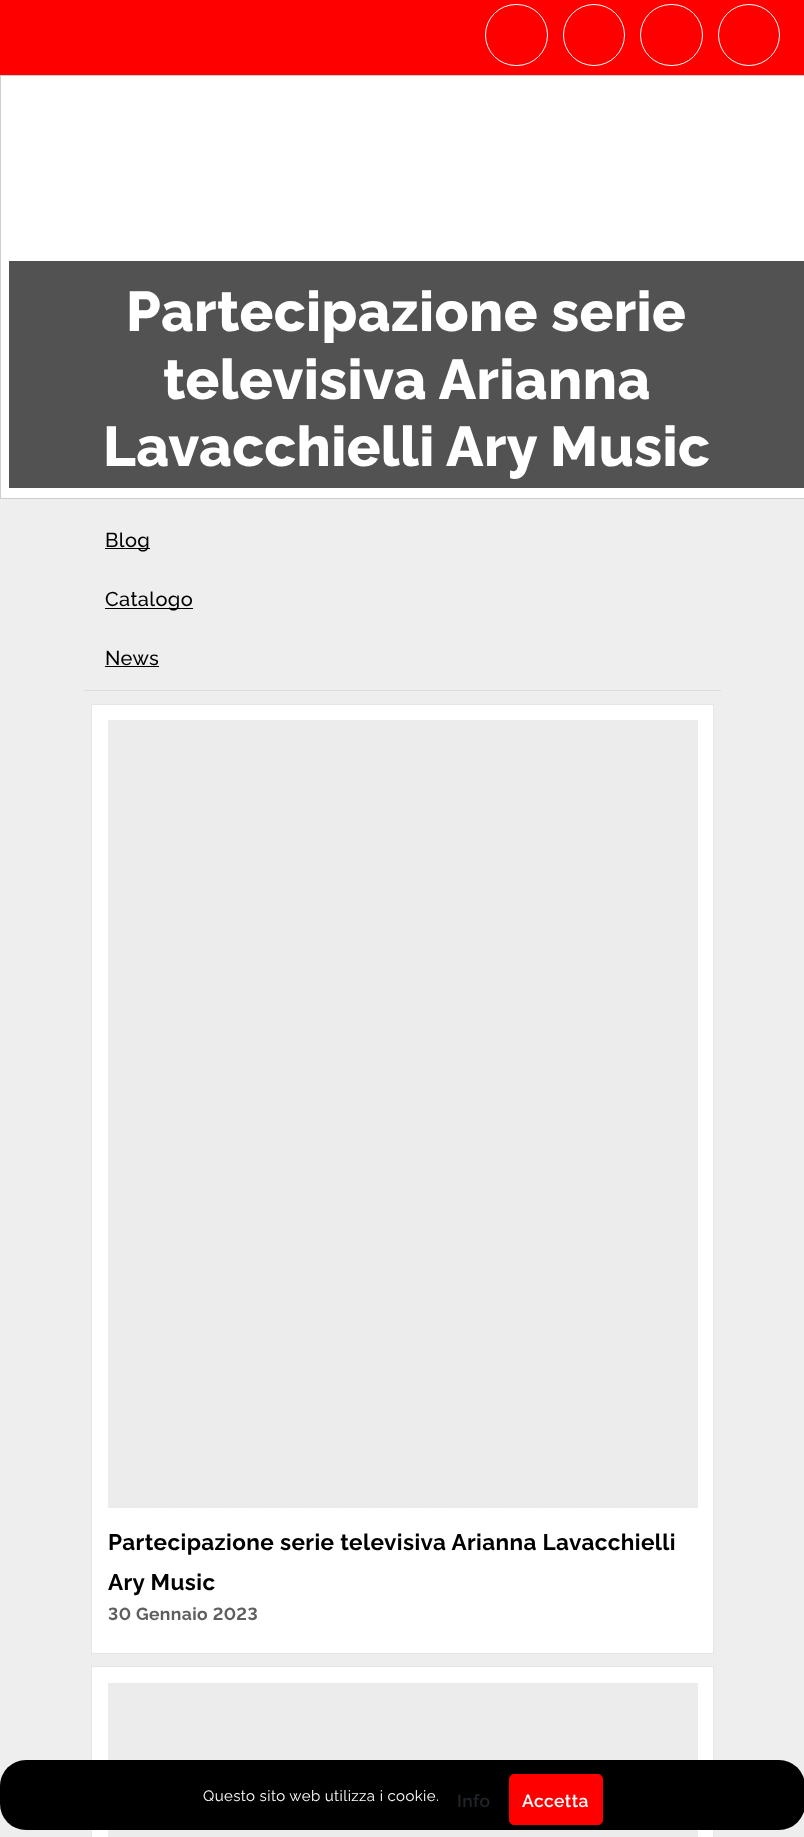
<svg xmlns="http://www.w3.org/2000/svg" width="804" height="1837">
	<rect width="100%" height="100%" fill="#EEEEEE" />
	<rect x="0" y="0" width="804" height="75" fill="#FE0000" />
	<rect x="485.5" y="4.5" width="62" height="61" rx="30.5" fill="none" stroke="#FFFFFF" />
	<circle cx="594" cy="35" r="30.5" fill="none" stroke="#FFFFFF" />
	<rect x="640.5" y="4.5" width="62" height="61" rx="30.5" fill="none" stroke="#FFFFFF" />
	<circle cx="749" cy="35" r="30.5" fill="none" stroke="#FFFFFF" />
	<rect x="0.5" y="75.5" width="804" height="423" fill="#FFFFFF" stroke="#CECECE" />
	<rect x="9" y="261" width="795" height="227" fill="#525252" />
	<g font-family="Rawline" font-size="56" font-weight="800" letter-spacing="0.4" fill="#FFFFFF">
		<text x="126" y="331">Partecipazione serie</text>
		<text x="163" y="399">televisiva Arianna</text>
		<text x="103" y="466">Lavacchielli</text>
		<text x="446" y="466">Ary Music</text>
	</g>
	<rect x="84" y="690" width="637" height="1" fill="#DCDCDC" />
	<rect x="105" y="548" width="45" height="1" fill="#000000" />
	<text x="105" y="547" font-family="Rawline" font-size="20" font-weight="500" letter-spacing="0.4" fill="#000000">Blog</text>
	<rect x="105" y="608" width="88" height="1" fill="#000000" />
	<g font-family="Rawline" font-size="20" font-weight="500" letter-spacing="0.4" fill="#000000">
		<text x="105" y="606">Catalogo</text>
		<text x="105" y="665">News</text>
	</g>
	<rect x="105" y="666" width="54" height="1" fill="#000000" />
	<rect x="91.5" y="704.5" width="622" height="949" fill="#FFFFFF" stroke="#E6E6E6" />
	<rect x="108" y="720" width="590" height="788" fill="#ECECEC" />
	<path d="M107.5 1507H697.5" fill="none" stroke="#E8E8E8" stroke-width="1.2" stroke-dasharray="3.75 2.49" />
	<g font-family="Rawline" font-size="22.5" font-weight="700" letter-spacing="0.4" fill="#000000">
		<text x="108" y="1550">Partecipazione serie televisiva Arianna Lavacchielli</text>
		<text x="108" y="1590">Ary Music</text>
	</g>
	<text x="108" y="1620" font-family="Rawline" font-size="17.5" font-weight="700" letter-spacing="0.4" fill="#5F5F5F">30 Gennaio 2023</text>
	<rect x="91.5" y="1666.5" width="622" height="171" fill="#FFFFFF" stroke="#E6E6E6" />
	<rect x="108" y="1683" width="590" height="154" fill="#ECECEC" />
	<rect x="0" y="1760" width="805" height="70" rx="26" fill="#000000" />
	<text x="203" y="1801" font-family="Rawline" font-size="15" letter-spacing="0.4" fill="#FFFFFF">Questo sito web utilizza i cookie.</text>
	<text x="457" y="1807" font-family="Rawline" font-size="17.5" font-weight="600" letter-spacing="0.4" fill="#212529">Info</text>
	<rect x="509.5" y="1774.5" width="93" height="50" rx="4.5" fill="#FE0000" stroke="#FE0000" />
	<text x="522" y="1807" font-family="Rawline" font-size="17.5" font-weight="600" letter-spacing="0.4" fill="#FFFFFF">Accetta</text>
</svg>
